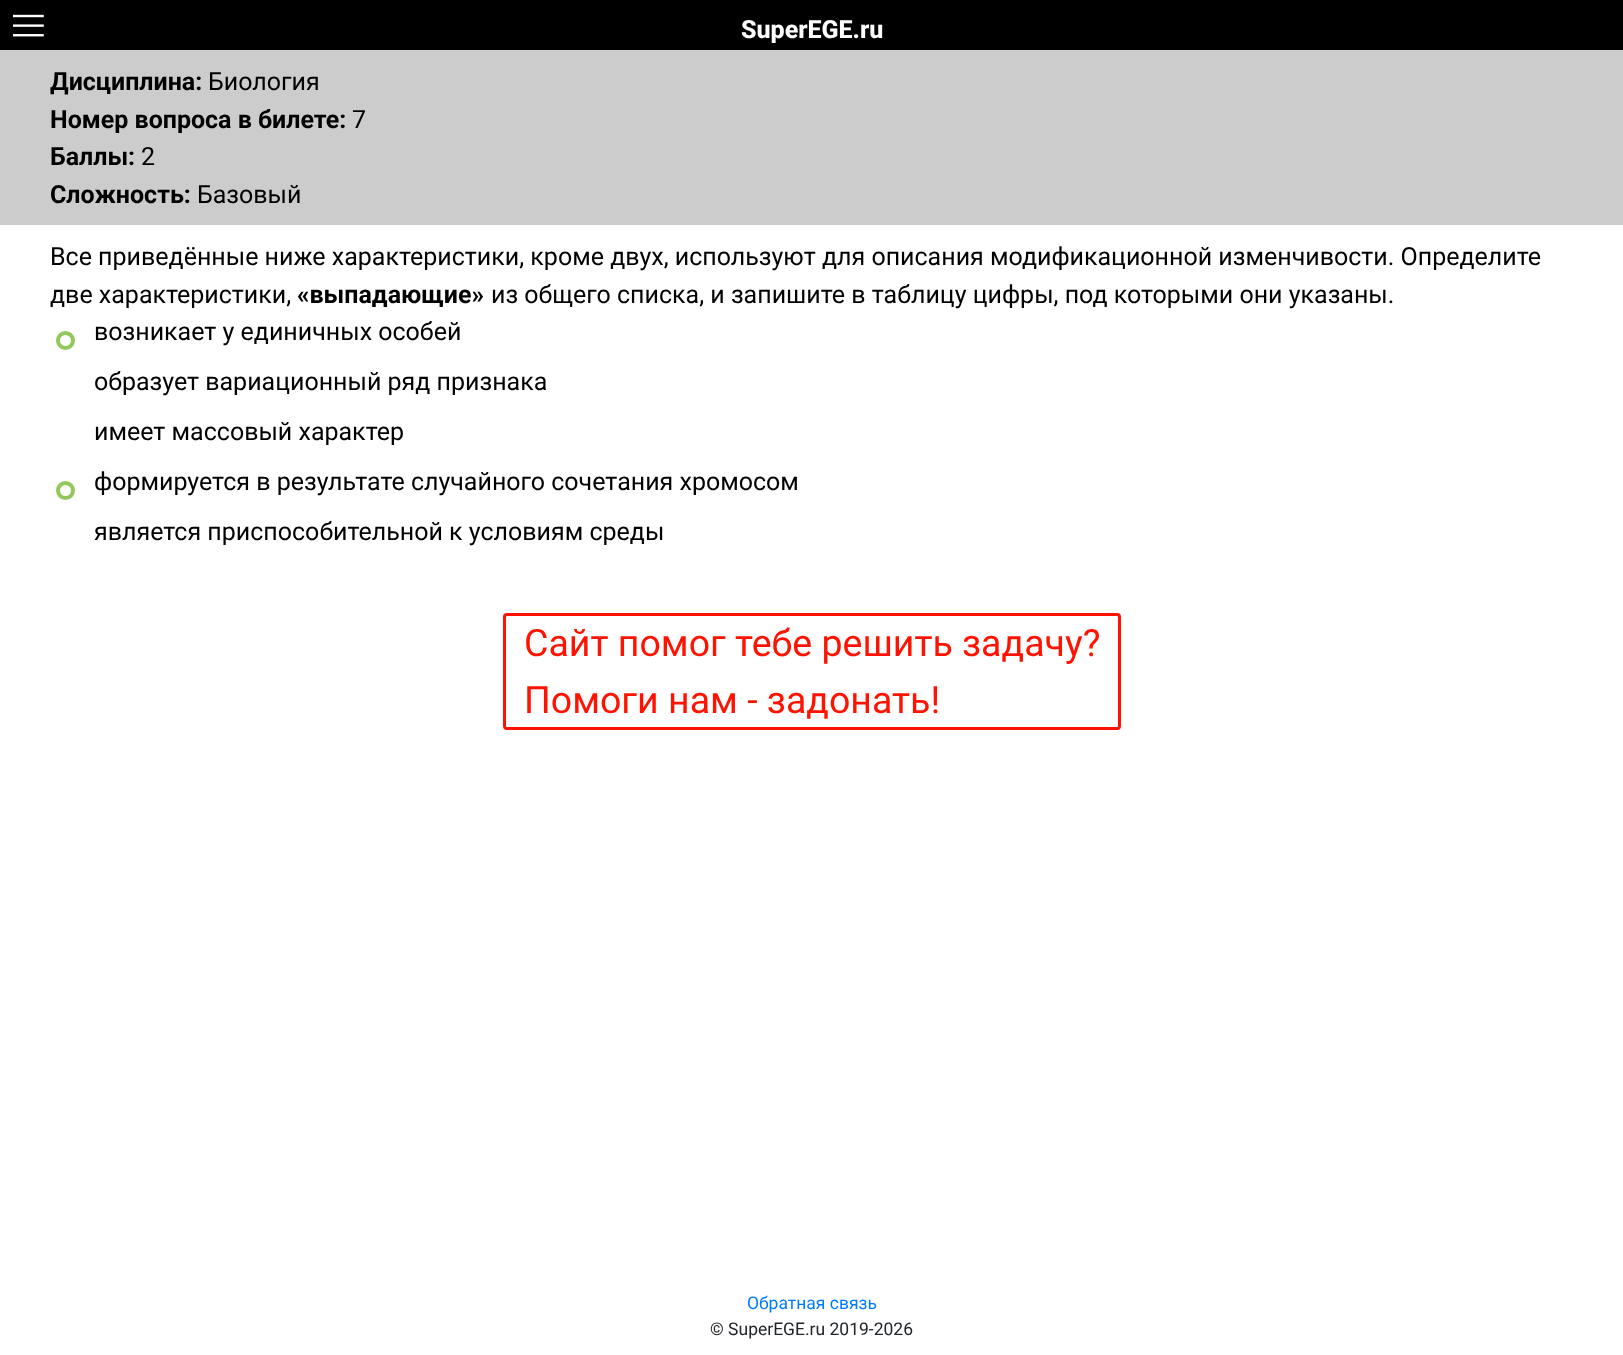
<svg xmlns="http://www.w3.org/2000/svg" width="1623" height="1355">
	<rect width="100%" height="100%" fill="#FFFFFF" />
	<rect x="0" y="0" width="1623" height="50" fill="#000000" />
	<image x="13" y="14" width="31" height="23" href="assets/img1.png" />
	<text x="741" y="38" font-family="Roboto" font-size="25" font-weight="800" fill="#FFFFFF">SuperEGE.ru</text>
	<rect x="0" y="50" width="1623" height="175" fill="#CCCCCC" />
	<text x="50" y="90" font-family="Roboto" font-size="25" font-weight="700" fill="#000000">Дисциплина:</text>
	<text x="208" y="90" font-family="Roboto" font-size="25" fill="#000000">Биология</text>
	<text x="50" y="128" font-family="Roboto" font-size="25" font-weight="700" fill="#000000">Номер вопроса в билете:</text>
	<text x="352" y="128" font-family="Roboto" font-size="25" fill="#000000">7</text>
	<text x="50" y="165" font-family="Roboto" font-size="25" font-weight="700" fill="#000000">Баллы:</text>
	<text x="141" y="165" font-family="Roboto" font-size="25" fill="#000000">2</text>
	<text x="50" y="203" font-family="Roboto" font-size="25" font-weight="700" fill="#000000">Сложность:</text>
	<g font-family="Roboto" font-size="25" fill="#000000">
		<text x="197" y="203">Базовый</text>
		<text x="50" y="265">Все приведённые ниже характеристики, кроме двух, используют для описания модификационной изменчивости. Определите</text>
		<text x="50" y="303">две характеристики,</text>
	</g>
	<text x="297" y="303" font-family="Roboto" font-size="25" font-weight="700" fill="#000000">«выпадающие»</text>
	<text x="491" y="303" font-family="Roboto" font-size="25" fill="#000000">из общего списка, и запишите в таблицу цифры, под которыми они указаны.</text>
	<circle cx="65.5" cy="340.5" r="7.5" fill="none" stroke="#92C85B" stroke-width="4" />
	<g font-family="Roboto" font-size="25" fill="#000000">
		<text x="94" y="340">возникает у единичных особей</text>
		<text x="94" y="390">образует вариационный ряд признака</text>
		<text x="94" y="440">имеет массовый характер</text>
	</g>
	<circle cx="65.5" cy="490.5" r="7.5" fill="none" stroke="#92C85B" stroke-width="4" />
	<g font-family="Roboto" font-size="25" fill="#000000">
		<text x="94" y="490">формируется в результате случайного сочетания хромосом</text>
		<text x="94" y="540">является приспособительной к условиям среды</text>
	</g>
	<rect x="504.5" y="614.5" width="615" height="114" rx="2.5" fill="none" stroke="#FF1300" stroke-width="3" />
	<g font-family="Roboto" font-size="37.5" fill="#FF1300">
		<text x="524" y="656">Сайт помог тебе решить задачу?</text>
		<text x="524" y="713">Помоги нам - задонать!</text>
	</g>
	<text x="747" y="1309" font-family="Roboto" font-size="17.5" fill="#007BFF">Обратная связь</text>
	<text x="710" y="1335" font-family="Roboto" font-size="17.5" fill="#212529">© SuperEGE.ru 2019-2026</text>
</svg>
